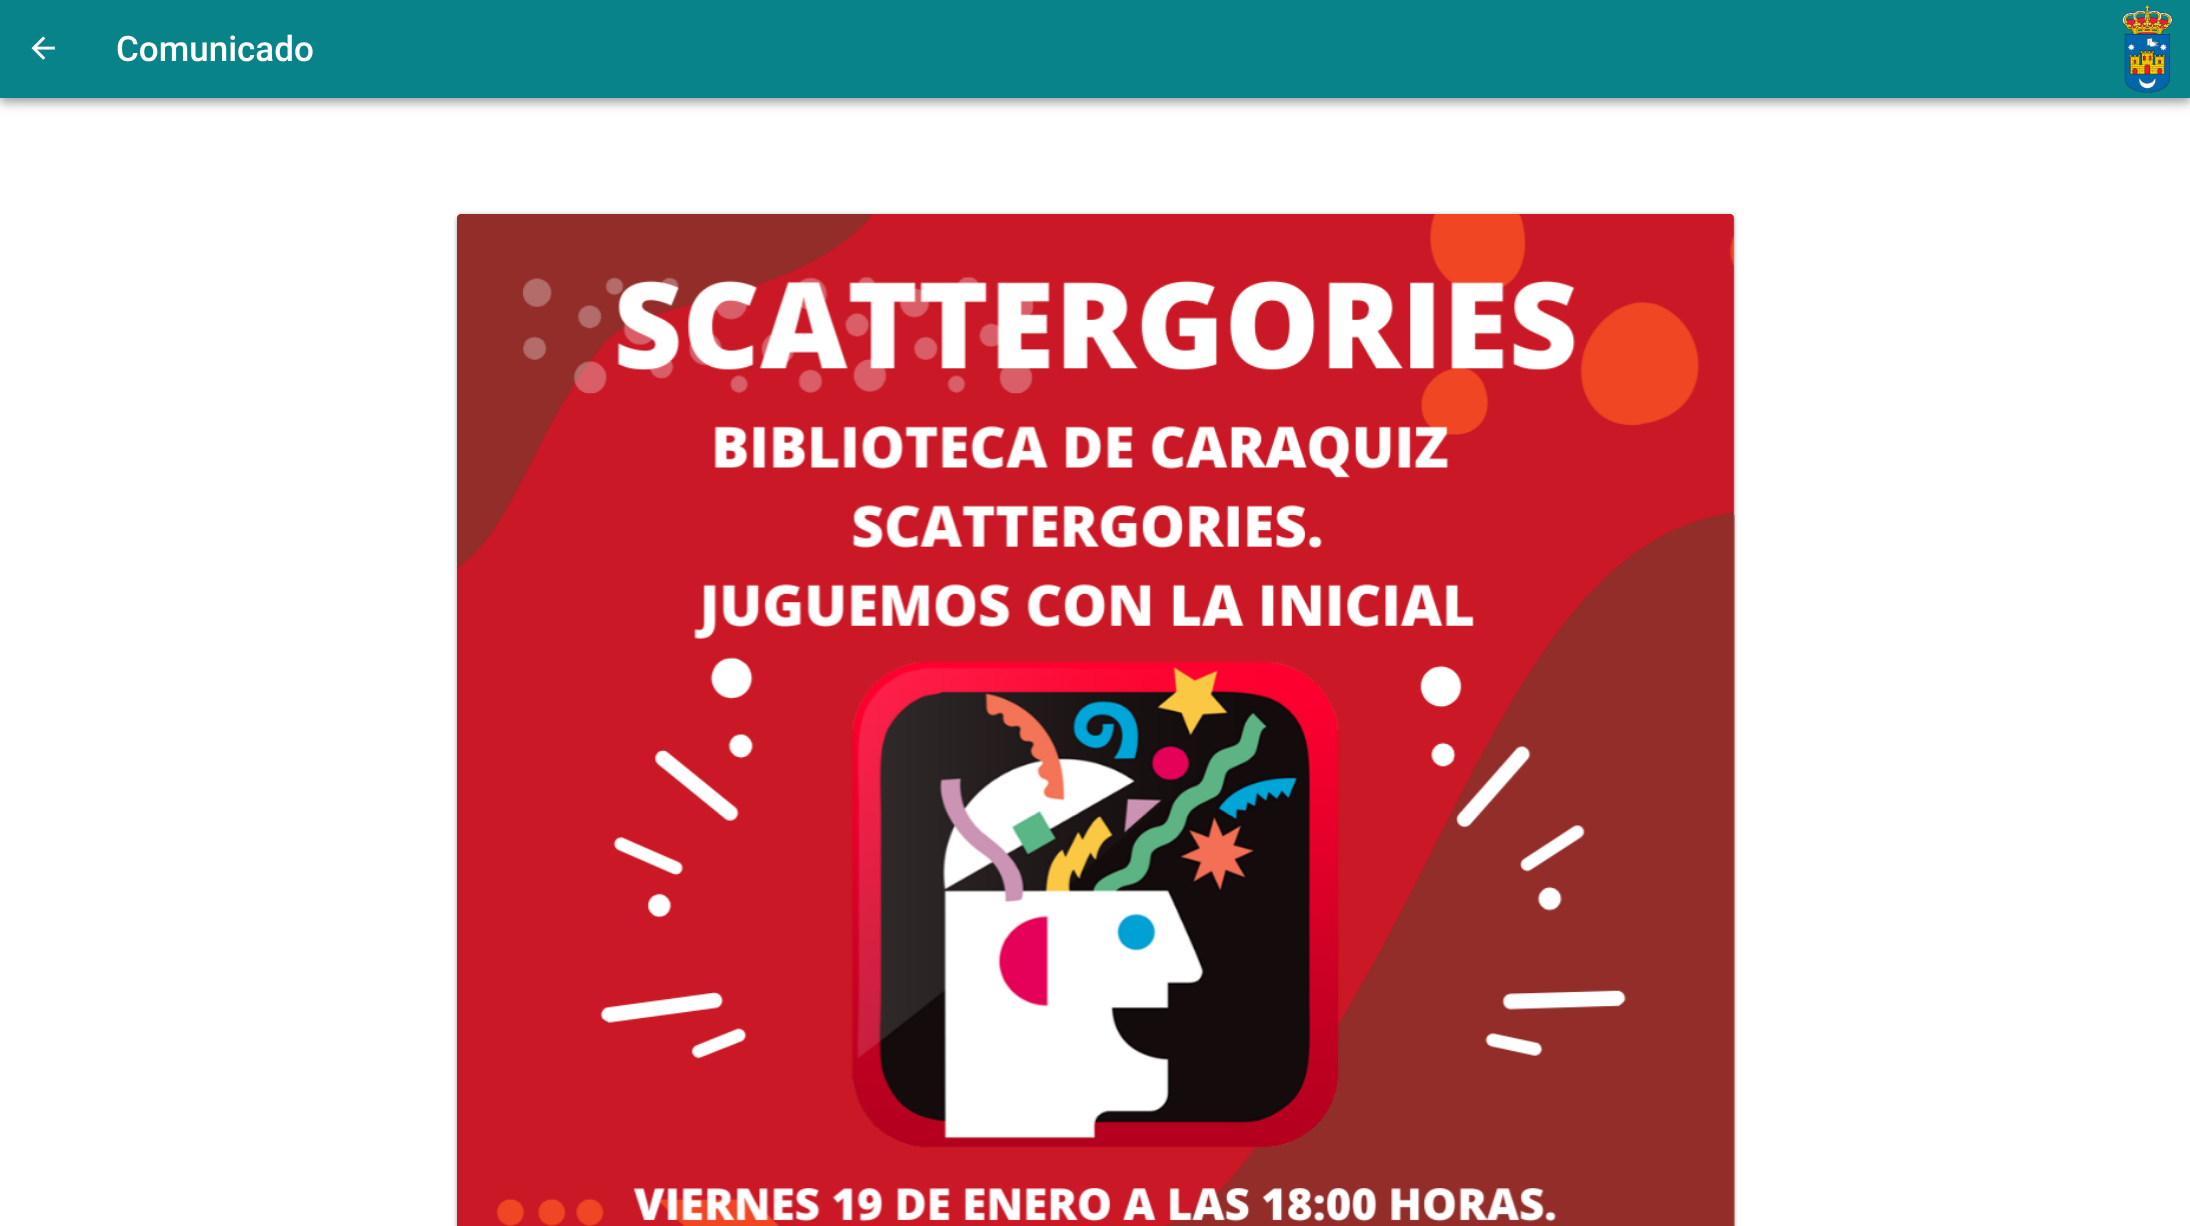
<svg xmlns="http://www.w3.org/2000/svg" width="2190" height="1226">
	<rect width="100%" height="100%" fill="#FFFFFF" />
	<rect x="0" y="2" width="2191" height="98" fill="#000000" fill-opacity="0.12" filter="blur(9px)" />
	<rect x="0" y="7" width="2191" height="98" fill="#000000" fill-opacity="0.14" filter="blur(4.5px)" />
	<rect x="2" y="5" width="2187" height="95" fill="#000000" fill-opacity="0.2" filter="blur(3.5px)" />
	<rect x="0" y="0" width="2190" height="98" fill="#088389" />
	<image x="31" y="36" width="24" height="24" href="assets/img1.png" />
	<text x="116" y="61" font-family="Roboto" font-size="35" font-weight="500" fill="#FFFFFF">Comunicado</text>
	<image x="2122" y="5" width="51" height="88" href="assets/img2.png" />
	<rect x="457" y="215" width="1277" height="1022" rx="5" fill="#000000" fill-opacity="0.24" filter="blur(2px)" />
	<rect x="457" y="215" width="1277" height="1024" rx="5" fill="#000000" fill-opacity="0.12" filter="blur(2.5px)" />
	<image x="457" y="214" width="1278" height="1012" href="assets/img3.png" />
</svg>
